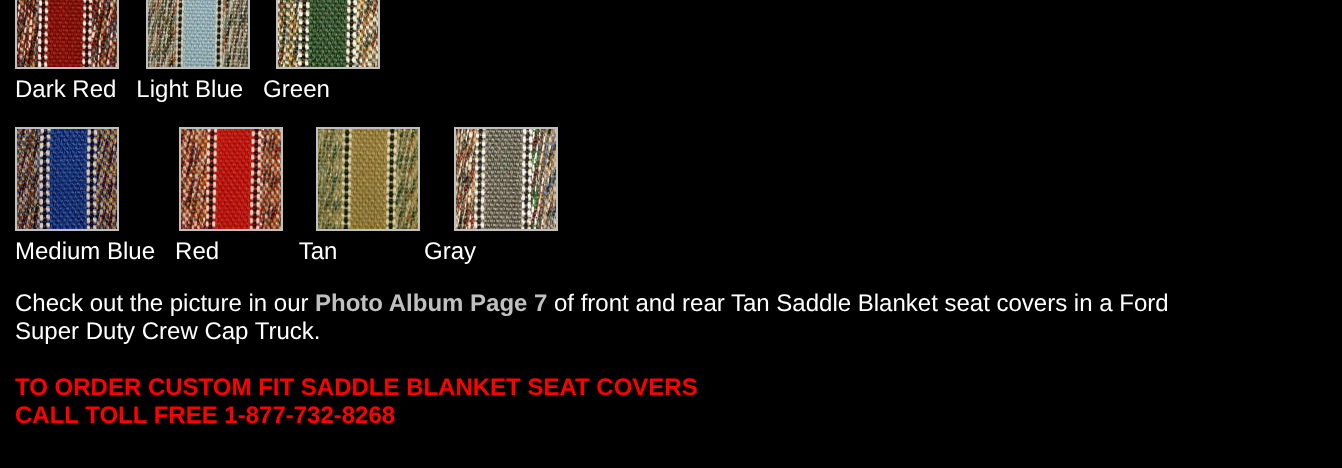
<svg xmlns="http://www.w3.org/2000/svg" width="1342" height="468">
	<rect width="100%" height="100%" fill="#000000" />
	<rect x="16" y="-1" width="102" height="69" fill="none" stroke="#C0C0C0" stroke-width="2" />
	<image x="17" y="0" width="100" height="67" href="assets/img1.png" />
	<rect x="147" y="-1" width="102" height="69" fill="none" stroke="#C0C0C0" stroke-width="2" />
	<image x="148" y="0" width="100" height="67" href="assets/img2.png" />
	<rect x="277" y="-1" width="102" height="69" fill="none" stroke="#C0C0C0" stroke-width="2" />
	<image x="278" y="0" width="100" height="67" href="assets/img3.png" />
	<text x="15" y="97" font-family="Liberation Sans" font-size="24" fill="#FFFFFF" xml:space="preserve">Dark Red   Light Blue   Green</text>
	<rect x="16" y="128" width="102" height="102" fill="none" stroke="#C0C0C0" stroke-width="2" />
	<image x="17" y="129" width="100" height="100" href="assets/img4.png" />
	<rect x="180" y="128" width="102" height="102" fill="none" stroke="#C0C0C0" stroke-width="2" />
	<image x="181" y="129" width="100" height="100" href="assets/img5.png" />
	<rect x="317" y="128" width="102" height="102" fill="none" stroke="#C0C0C0" stroke-width="2" />
	<image x="318" y="129" width="100" height="100" href="assets/img6.png" />
	<rect x="455" y="128" width="102" height="102" fill="none" stroke="#C0C0C0" stroke-width="2" />
	<image x="456" y="129" width="100" height="100" href="assets/img7.png" />
	<g font-family="Liberation Sans" font-size="24" fill="#FFFFFF">
		<text x="15" y="259" xml:space="preserve">Medium Blue   Red            Tan             Gray</text>
		<text x="15" y="311">Check out the picture in our</text>
	</g>
	<text x="315" y="311" font-family="Liberation Sans" font-size="24" font-weight="700" fill="#C0C0C0">Photo Album Page 7</text>
	<g font-family="Liberation Sans" font-size="24" fill="#FFFFFF">
		<text x="554" y="311">of front and rear Tan Saddle Blanket seat covers in a Ford</text>
		<text x="15" y="339">Super Duty Crew Cap Truck.</text>
	</g>
	<g font-family="Liberation Sans" font-size="24" font-weight="700" fill="#FF0000">
		<text x="15" y="395">TO ORDER CUSTOM FIT SADDLE BLANKET SEAT COVERS</text>
		<text x="15" y="423">CALL TOLL FREE 1-877-732-8268</text>
	</g>
</svg>
